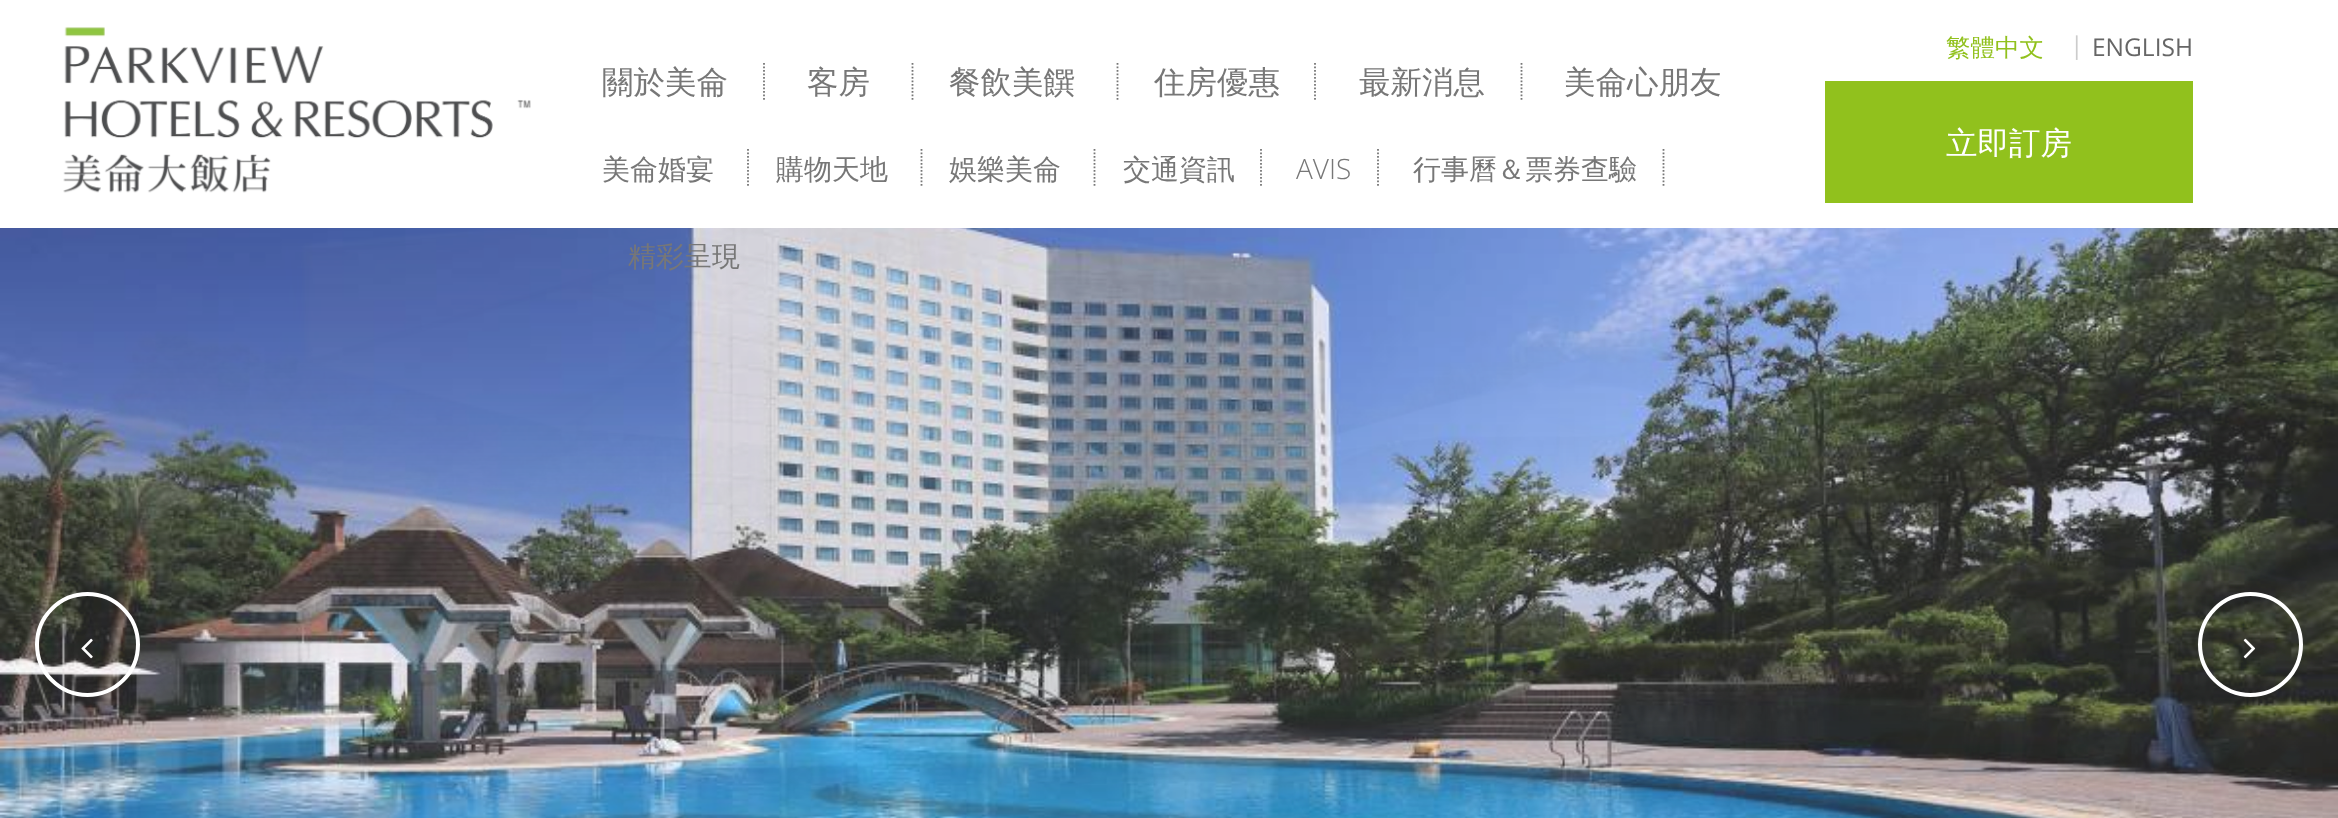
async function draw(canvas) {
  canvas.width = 2338;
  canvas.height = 818;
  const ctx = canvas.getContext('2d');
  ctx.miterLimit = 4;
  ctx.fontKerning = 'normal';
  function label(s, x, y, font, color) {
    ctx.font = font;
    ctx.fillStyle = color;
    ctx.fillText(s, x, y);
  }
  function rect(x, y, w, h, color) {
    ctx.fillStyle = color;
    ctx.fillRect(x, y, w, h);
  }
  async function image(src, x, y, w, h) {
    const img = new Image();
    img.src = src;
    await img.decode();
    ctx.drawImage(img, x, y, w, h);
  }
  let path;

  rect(0, 0, 2338, 818, '#fff');
  await image('assets/img1.png', 63, 26, 468, 167);
  path = new Path2D('M764 63V101.5');
  ctx.strokeStyle = '#777';
  ctx.lineWidth = 1.8;
  ctx.setLineDash([1.75, 1.75]);
  ctx.stroke(path);
  label('關於美侖', 602, 93, '500 31.5px WenQuanYi Zen Hei', '#777');
  path = new Path2D('M912.5 63V101.5');
  ctx.stroke(path);
  label('客房', 807, 93, '500 31.5px WenQuanYi Zen Hei', '#777');
  path = new Path2D('M1117.5 63V101.5');
  ctx.stroke(path);
  label('餐飲美饌', 949, 93, '500 31.5px WenQuanYi Zen Hei', '#777');
  path = new Path2D('M1315 63V101.5');
  ctx.stroke(path);
  label('住房優惠', 1154, 93, '500 31.5px WenQuanYi Zen Hei', '#777');
  path = new Path2D('M1521.5 63V101.5');
  ctx.stroke(path);
  label('最新消息', 1359, 93, '500 31.5px WenQuanYi Zen Hei', '#777');
  label('美侖心朋友', 1564, 93, '500 31.5px WenQuanYi Zen Hei', '#777');
  path = new Path2D('M748 149V187');
  ctx.stroke(path);
  label('美侖婚宴', 602, 179, '500 28px WenQuanYi Zen Hei', '#777');
  path = new Path2D('M921.5 149V187');
  ctx.stroke(path);
  label('購物天地', 776, 179, '500 28px WenQuanYi Zen Hei', '#777');
  path = new Path2D('M1094.5 149V187');
  ctx.stroke(path);
  label('娛樂美侖', 949, 179, '500 28px WenQuanYi Zen Hei', '#777');
  path = new Path2D('M1261 149V187');
  ctx.stroke(path);
  label('交通資訊', 1123, 179, '500 28px WenQuanYi Zen Hei', '#777');
  path = new Path2D('M1378 149V187');
  ctx.stroke(path);
  label('AVIS', 1296, 179, '300 28px Open Sans', '#777');
  path = new Path2D('M1663.5 149V187');
  ctx.stroke(path);
  label('行事曆＆票券查驗', 1413, 179, '500 28px WenQuanYi Zen Hei', '#777');
  await image('assets/img2.png', 0, 228, 2338, 590);
  await image('assets/img3.png', 0, 228, 2338, 590);
  label('精彩呈現', 628, 266, '500 28px WenQuanYi Zen Hei', '#777');
  label('繁體中文', 1946, 56, '500 24.5px WenQuanYi Zen Hei', '#91c11d');
  label('|', 2070, 54, '24.5px Open Sans', '#ccc');
  label('ENGLISH', 2092, 56, '24.5px Open Sans', '#666');
  rect(1825, 81, 368, 122, '#91c11d');
  label('立即訂房', 1946, 154, '500 31.5px WenQuanYi Zen Hei', '#fff');
  ctx.beginPath();
  ctx.arc(87.5, 644.5, 50.5, 0, 2 * Math.PI);
  ctx.strokeStyle = '#fff';
  ctx.lineWidth = 4;
  ctx.setLineDash([]);
  ctx.stroke();
  await image('assets/img4.png', 81, 638, 12, 21);
  ctx.beginPath();
  ctx.arc(2250.5, 644.5, 50.5, 0, 2 * Math.PI);
  ctx.stroke();
  await image('assets/img5.png', 2243, 638, 13, 21);
}

draw(document.querySelector('canvas'));
